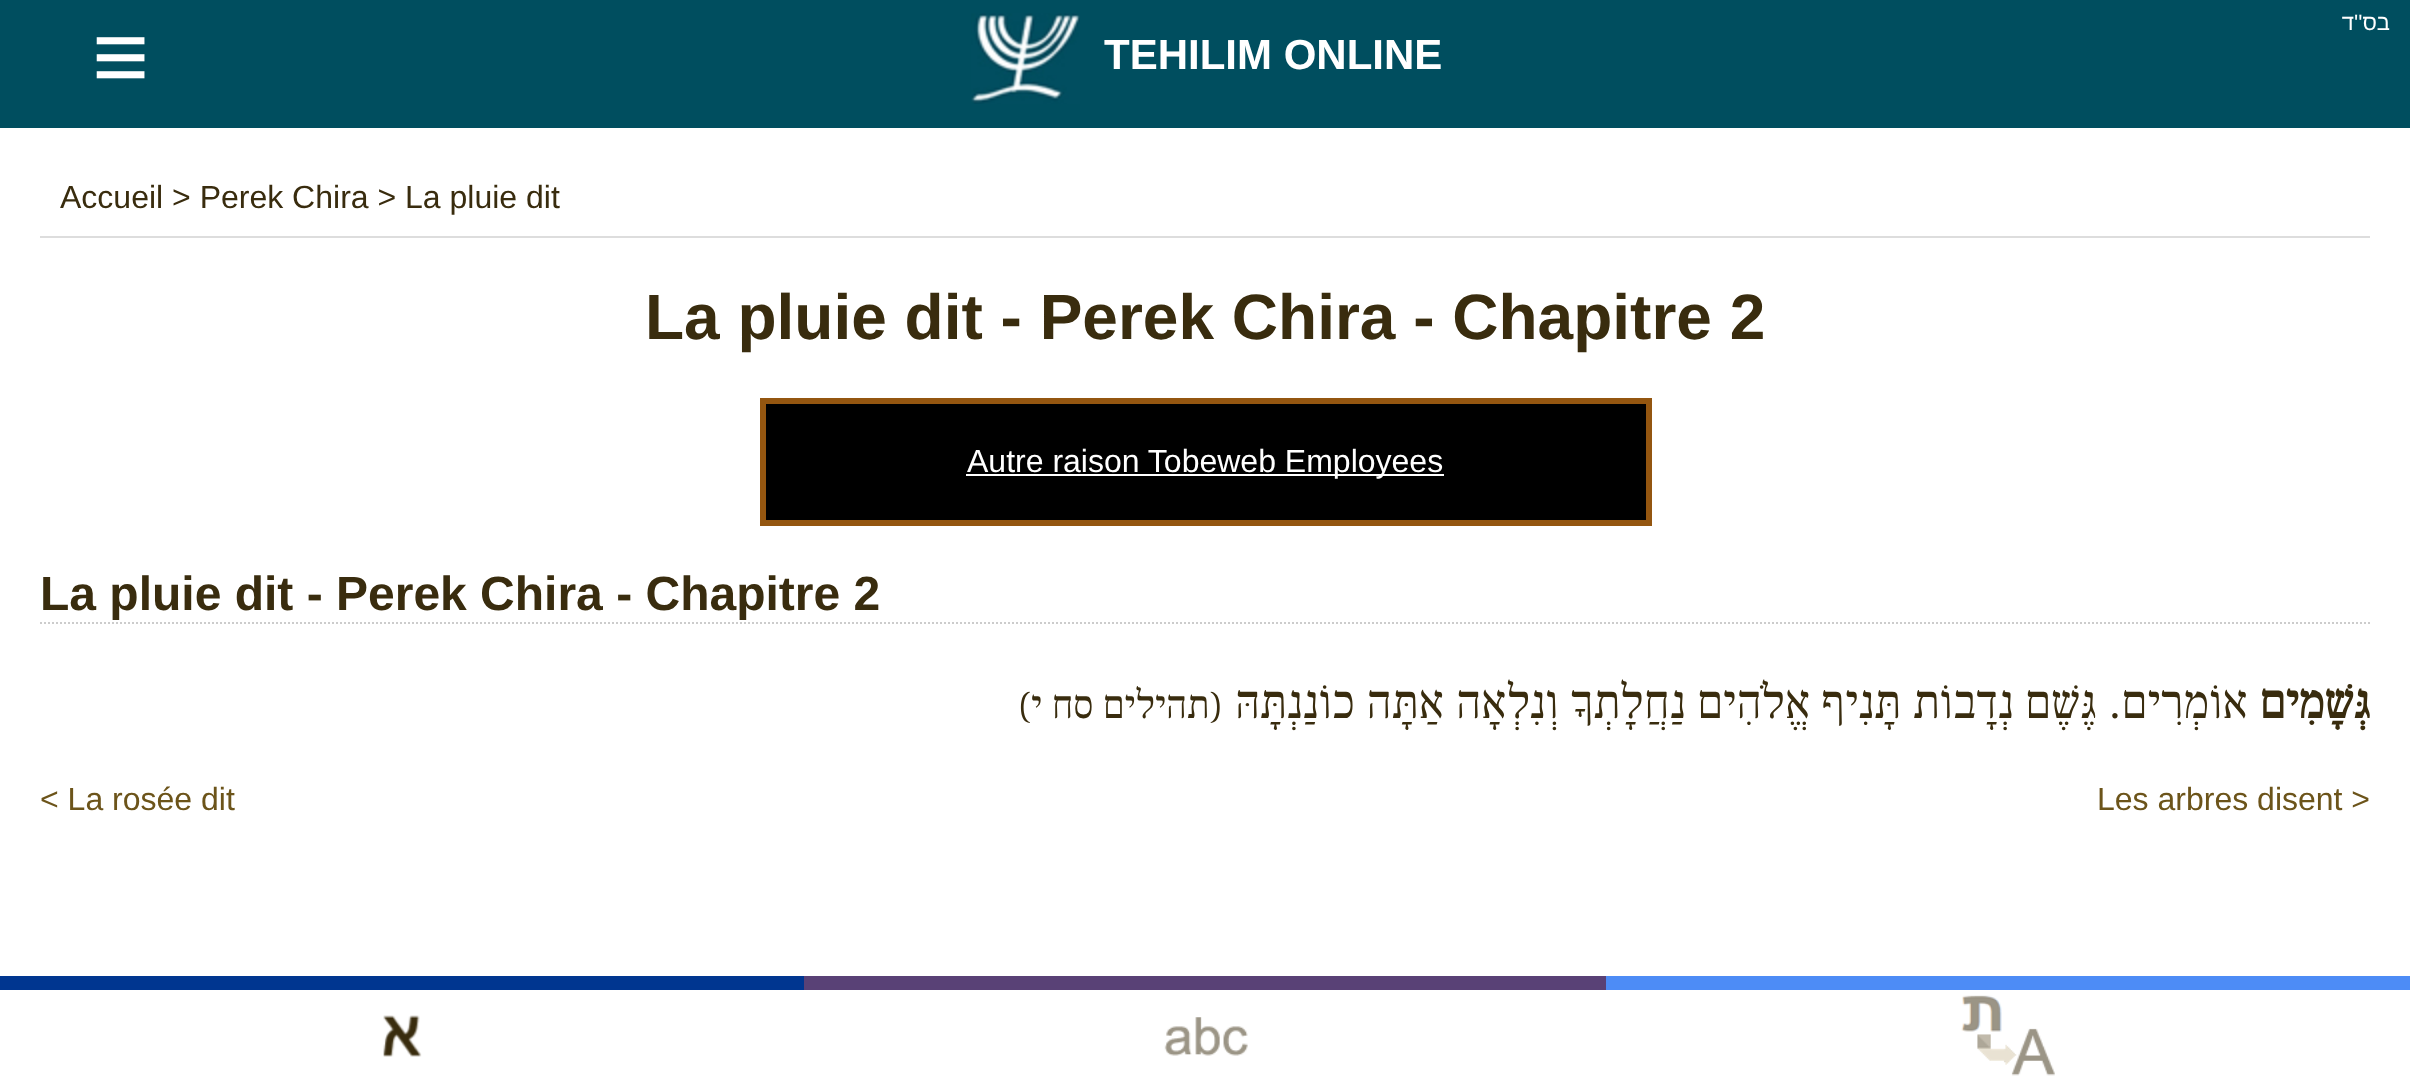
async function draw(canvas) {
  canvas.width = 2410;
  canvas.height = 1082;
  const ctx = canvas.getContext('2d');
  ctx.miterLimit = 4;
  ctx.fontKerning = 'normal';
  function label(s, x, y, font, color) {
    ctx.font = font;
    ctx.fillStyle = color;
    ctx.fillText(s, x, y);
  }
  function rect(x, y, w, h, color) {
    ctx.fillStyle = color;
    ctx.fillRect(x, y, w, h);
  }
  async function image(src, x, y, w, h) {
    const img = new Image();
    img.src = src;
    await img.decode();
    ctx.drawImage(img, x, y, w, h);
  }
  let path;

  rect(0, 0, 2410, 1082, '#fff');
  rect(0, 0, 2410, 128, '#004e5f');
  ctx.direction = 'rtl';
  label('בס\'\'ד', 2390, 30, '22px Liberation Sans', '#fff');
  ctx.direction = 'ltr';
  label('≡', 92, 90, '98px Liberation Sans', '#fff');
  await image('assets/img1.png', 971, 13, 109, 91);
  label('TEHILIM ONLINE', 1104, 69, 'bold 42px Liberation Sans', '#fff');
  rect(40, 236, 2330, 2, '#ddd');
  label('Accueil > Perek Chira > La pluie dit', 60, 208, '32px Liberation Sans', '#392c0e');
  label('La pluie dit - Perek Chira - Chapitre 2', 645, 339, 'bold 64px Liberation Sans', '#392c0e');
  ctx.fillStyle = '#000';
  ctx.beginPath();
  ctx.rect(763, 401, 886, 122);
  ctx.fill();
  ctx.strokeStyle = '#945610';
  ctx.lineWidth = 6;
  ctx.stroke();
  rect(966, 474, 478, 2, '#fff');
  label('Autre raison Tobeweb Employees', 967, 472, '32px Liberation Sans', '#fff');
  path = new Path2D('M40 623H2370');
  ctx.strokeStyle = '#ccc';
  ctx.lineWidth = 2;
  ctx.setLineDash([2, 2]);
  ctx.stroke(path);
  label('La pluie dit - Perek Chira - Chapitre 2', 40, 610, 'bold 48px Liberation Sans', '#392c0e');
  ctx.direction = 'rtl';
  label('(תהילים סח י)', 1223, 718, '40px Frank Ruhl Libre', '#392c0e');
  label('אוֹמְרִים. גֶּשֶׁם נְדָבוֹת תָּנִיף אֱלֹהִים נַחֲלָתְךָ וְנִלְאָה אַתָּה כוֹנַנְתָּהּ', 2248, 718, '48px Frank Ruhl Libre', '#392c0e');
  label('גְּשָׁמִים', 2370, 718, 'bold 48px Frank Ruhl Libre', '#392c0e');
  ctx.direction = 'ltr';
  label('< La rosée dit', 40, 810, '32px Liberation Sans', '#6c541a');
  label('Les arbres disent >', 2097, 810, '32px Liberation Sans', '#6c541a');
  rect(0, 976, 804, 14, '#003690');
  await image('assets/img2.png', 383, 1015, 39, 42);
  rect(804, 976, 802, 14, '#594176');
  await image('assets/img3.png', 1164, 1017, 84, 39);
  rect(1606, 976, 804, 14, '#4d8cf6');
  await image('assets/img4.png', 1961, 995, 94, 81);
}

draw(document.querySelector('canvas'));
